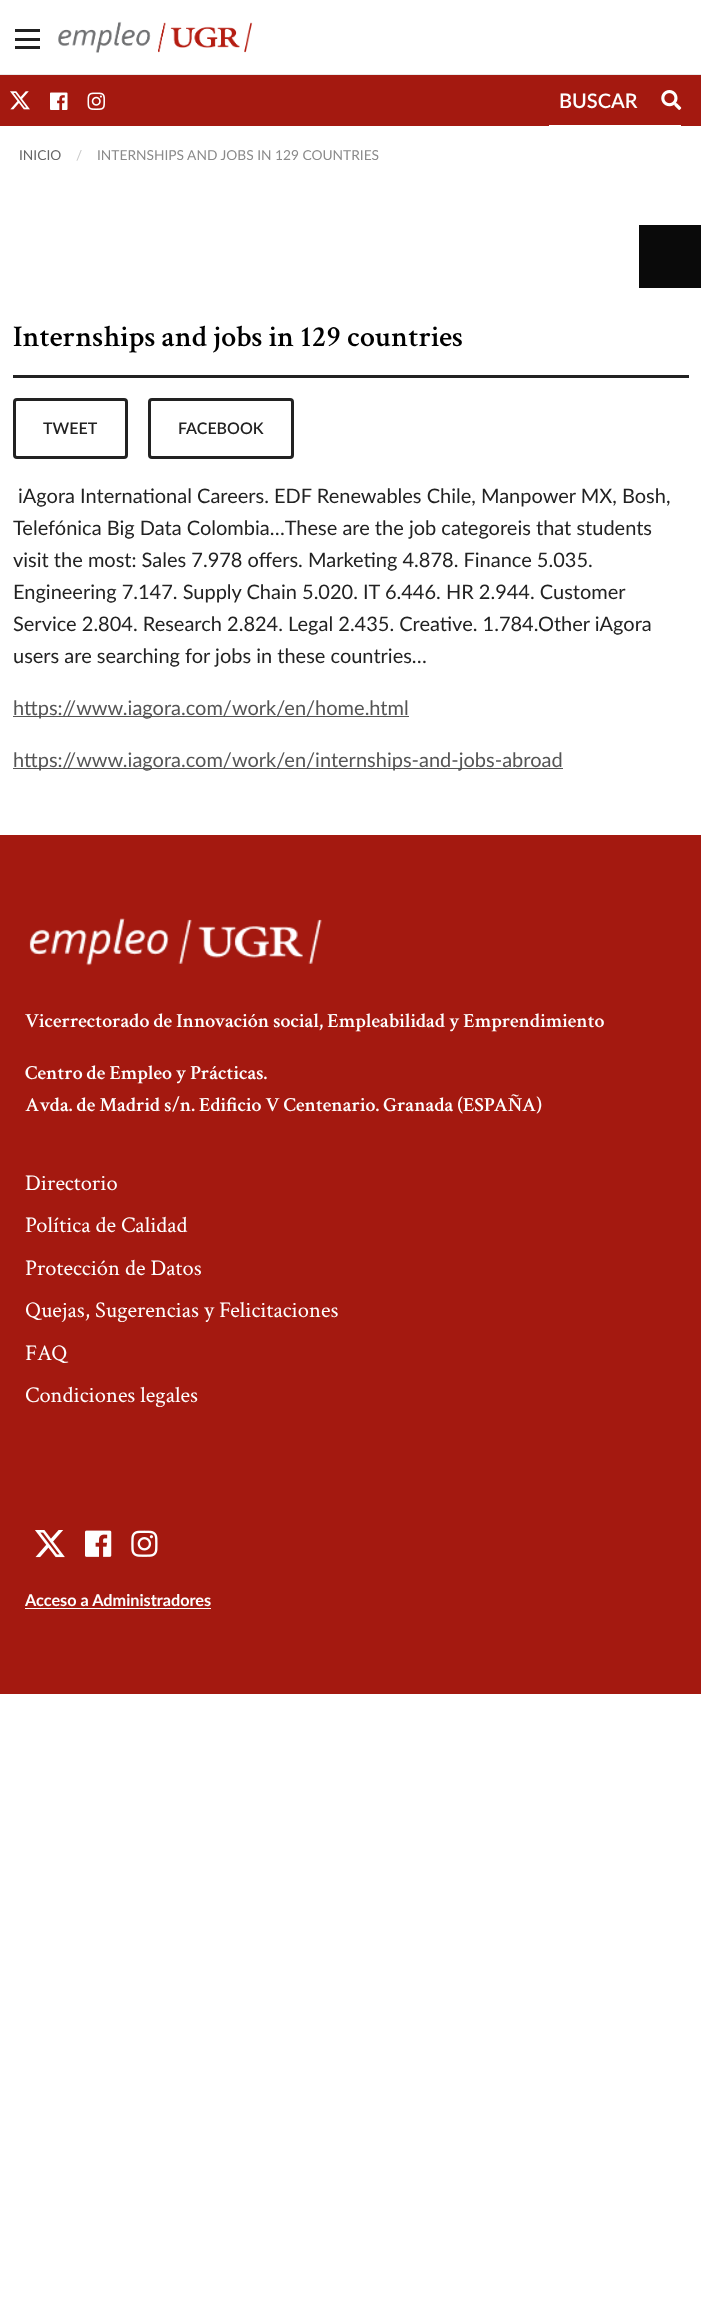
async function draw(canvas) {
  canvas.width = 701;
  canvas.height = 2299;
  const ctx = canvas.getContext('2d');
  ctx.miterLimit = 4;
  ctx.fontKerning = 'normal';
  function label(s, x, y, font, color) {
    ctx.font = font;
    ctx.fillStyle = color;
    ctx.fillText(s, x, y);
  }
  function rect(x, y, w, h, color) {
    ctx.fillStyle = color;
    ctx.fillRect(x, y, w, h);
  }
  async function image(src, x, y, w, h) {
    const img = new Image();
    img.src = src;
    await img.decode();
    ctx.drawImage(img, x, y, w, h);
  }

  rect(0, 0, 701, 2299, '#fff');
  rect(15, 46, 25, 3, '#212121');
  rect(15, 38, 25, 3, '#212121');
  rect(15, 29, 25, 3, '#212121');
  await image('assets/img1.png', 58, 21, 195, 32);
  rect(0, 74, 701, 1, '#eaeaea');
  rect(0, 75, 701, 51, '#a41910');
  await image('assets/img2.png', 10, 91, 20, 19);
  await image('assets/img3.png', 50, 92, 18, 18);
  await image('assets/img4.png', 87, 92, 18, 18);
  rect(549, 125, 132, 1, '#fff');
  label('BUSCAR', 559, 108, '600 20px Lato', '#fefefe');
  await image('assets/img5.png', 661, 90, 21, 20);
  label('INICIO', 19, 160, '13.75px Lato', '#666');
  label('/', 76, 160, '13.75px Lato', '#cacaca');
  label('INTERNSHIPS AND JOBS IN 129 COUNTRIES', 97, 160, '13.75px Lato', '#8a8a8a');
  rect(639, 225, 62, 63, '#0a0a0a');
  label('Internships and jobs in 129 countries', 13, 346, '600 30px Crimson Text', '#000');
  rect(13, 375, 676, 3, '#222');
  ctx.beginPath();
  ctx.roundRect(14.5, 399.5, 112, 58, 2.5);
  ctx.strokeStyle = '#222';
  ctx.lineWidth = 3;
  ctx.stroke();
  label('TWEET', 43, 434, '600 16px Lato', '#222');
  ctx.beginPath();
  ctx.roundRect(149.5, 399.5, 143, 58, 2.5);
  ctx.stroke();
  label('FACEBOOK', 178, 434, '600 16px Lato', '#222');
  label('iAgora International Careers. EDF Renewables Chile, Manpower MX, Bosh,', 18, 503, '20px Lato', '#222');
  label('Telefónica Big Data Colombia…These are the job categoreis that students', 13, 535, '20px Lato', '#222');
  label('visit the most: Sales 7.978 offers. Marketing 4.878. Finance 5.035.', 13, 567, '20px Lato', '#222');
  label('Engineering 7.147. Supply Chain 5.020. IT 6.446. HR 2.944. Customer', 13, 599, '20px Lato', '#222');
  label('Service 2.804. Research 2.824. Legal 2.435. Creative. 1.784.Other iAgora', 13, 631, '20px Lato', '#222');
  label('users are searching for jobs in these countries…', 13, 663, '20px Lato', '#222');
  rect(13, 716, 396, 1, '#555');
  label('https://www.iagora.com/work/en/home.html', 13, 715, '20px Lato', '#555');
  rect(13, 768, 550, 1, '#555');
  label('https://www.iagora.com/work/en/internships-and-jobs-abroad', 13, 767, '20px Lato', '#555');
  rect(0, 835, 701, 859, '#a41910');
  await image('assets/img6.png', 29, 918, 293, 48);
  label('Vicerrectorado de Innovación social, Empleabilidad y Emprendimiento', 25, 1027, '600 20px Crimson Text', '#fefefe');
  label('Centro de Empleo y Prácticas.', 25, 1079, '600 20px Crimson Text', '#fefefe');
  label('Avda. de Madrid s/n. Edificio V Centenario. Granada (ESPAÑA)', 25, 1111, '600 20px Crimson Text', '#fefefe');
  label('Directorio', 25, 1190, '22.5px Crimson Text', '#fefefe');
  label('Política de Calidad', 25, 1232, '22.5px Crimson Text', '#fefefe');
  label('Protección de Datos', 25, 1275, '22.5px Crimson Text', '#fefefe');
  label('Quejas, Sugerencias y Felicitaciones', 25, 1317, '22.5px Crimson Text', '#fefefe');
  label('FAQ', 25, 1360, '22.5px Crimson Text', '#fefefe');
  label('Condiciones legales', 25, 1402, '22.5px Crimson Text', '#fefefe');
  await image('assets/img7.png', 35, 1530, 30, 28);
  await image('assets/img8.png', 85, 1530, 27, 27);
  await image('assets/img9.png', 131, 1530, 27, 27);
  label('Acceso a Administradores', 25, 1606, 'bold 16.25px Lato', '#fefefe');
  rect(25, 1608, 186, 1, '#fff');
}

draw(document.querySelector('canvas'));
